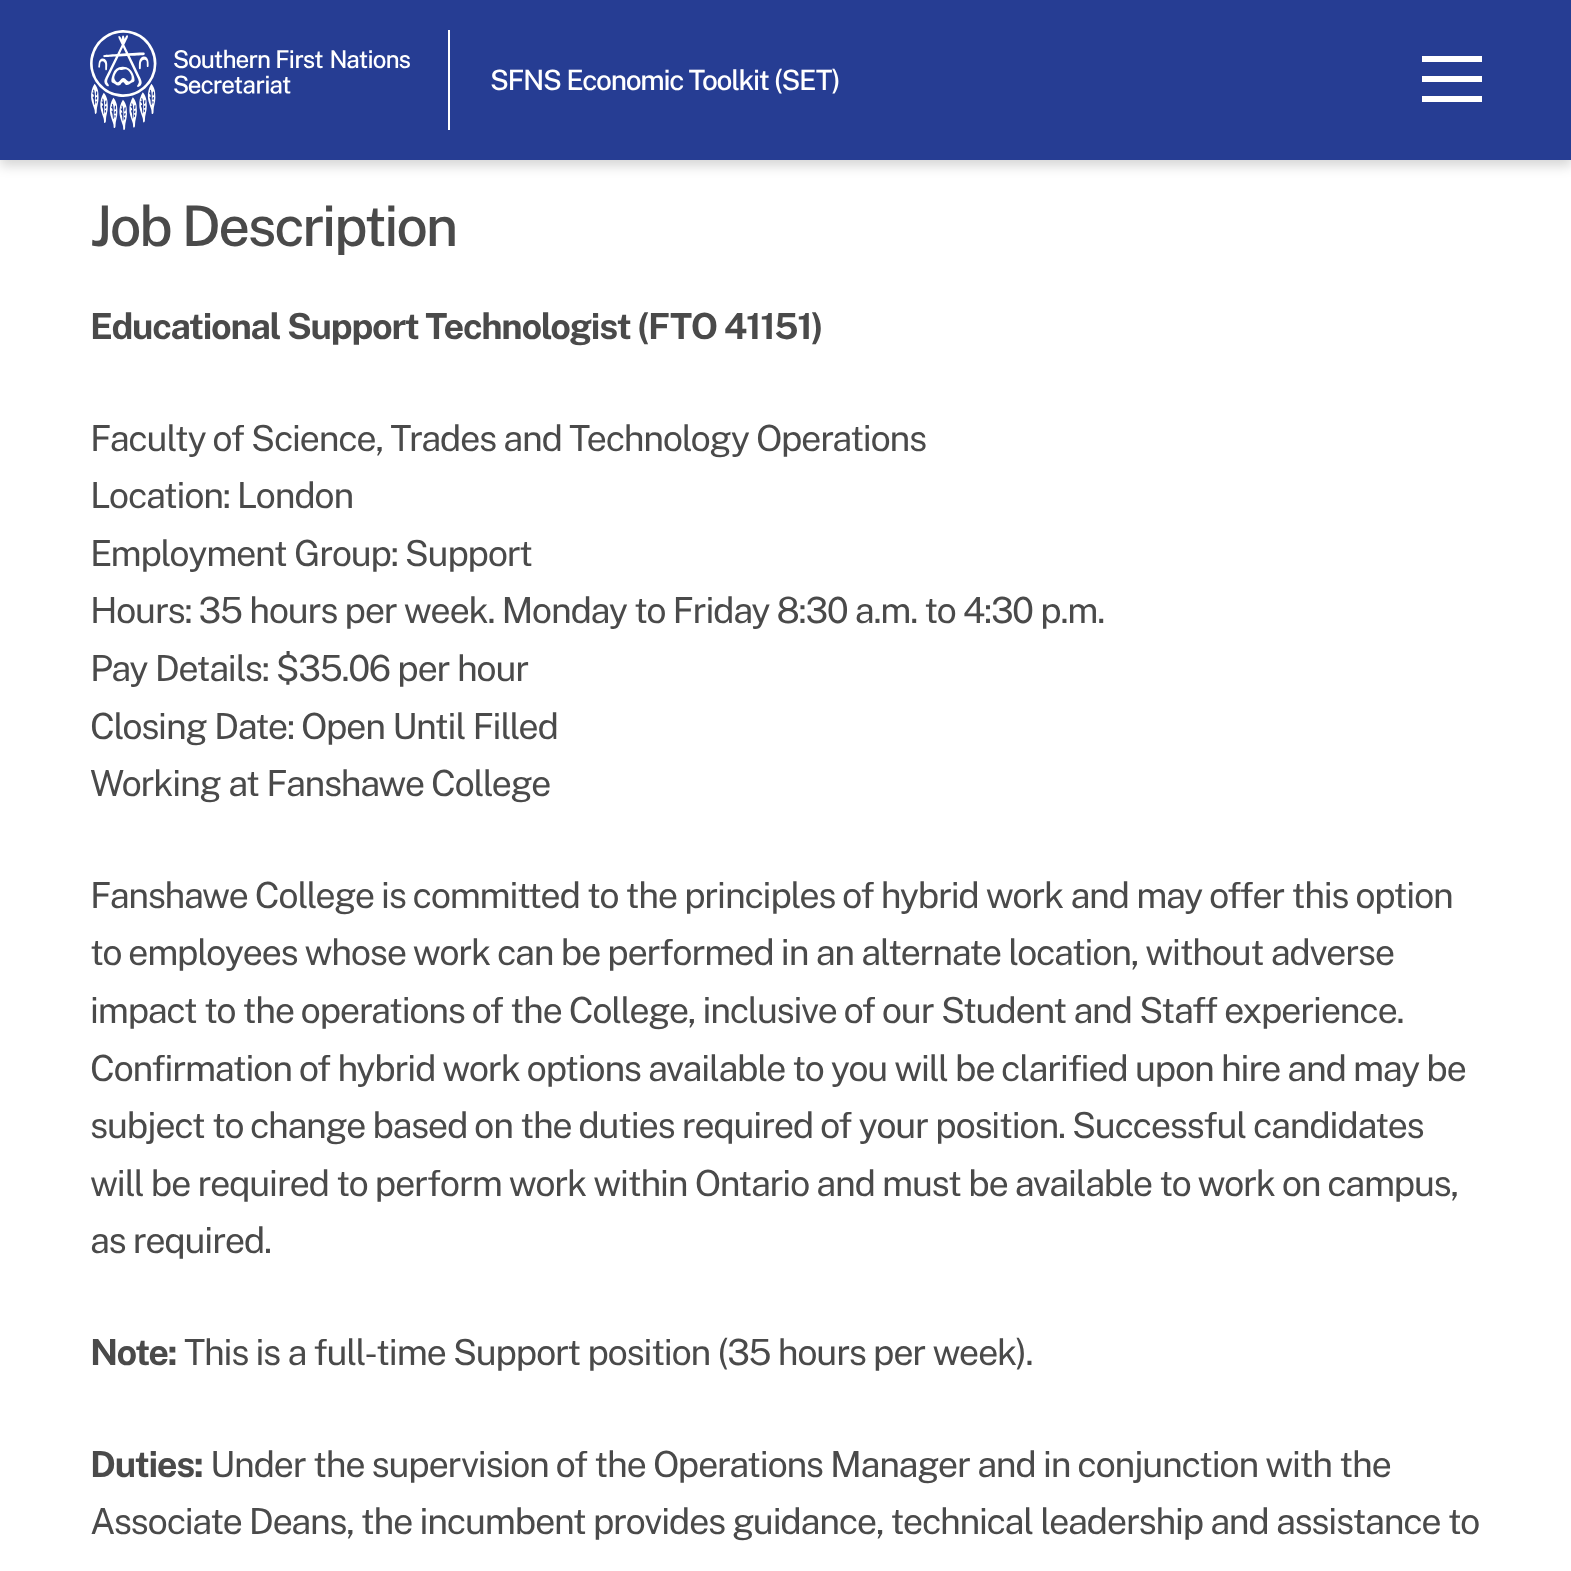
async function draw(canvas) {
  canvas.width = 1571;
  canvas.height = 1571;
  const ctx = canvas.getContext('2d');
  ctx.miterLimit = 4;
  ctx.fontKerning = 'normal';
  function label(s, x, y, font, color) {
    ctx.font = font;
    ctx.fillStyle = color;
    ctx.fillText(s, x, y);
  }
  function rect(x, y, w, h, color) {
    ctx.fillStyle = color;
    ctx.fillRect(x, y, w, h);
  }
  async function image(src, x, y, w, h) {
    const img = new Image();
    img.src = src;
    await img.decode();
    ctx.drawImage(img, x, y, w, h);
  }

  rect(0, 0, 1571, 1571, '#fff');
  ctx.fillStyle = '#00000029';
  ctx.filter = 'blur(6px)';
  ctx.beginPath();
  ctx.rect(0, 6, 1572, 160);
  ctx.fill();
  ctx.filter = 'none';
  rect(0, 0, 1571, 160, '#263d93');
  await image('assets/img1.png', 90, 30, 320, 100);
  rect(448, 30, 2, 100, '#fff');
  ctx.letterSpacing = '-1.28px';
  label('SFNS Economic Toolkit (SET)', 490, 90, '500 28px Public Sans', '#fff');
  rect(1422, 56, 60, 6, '#fff');
  rect(1422, 76, 60, 6, '#fff');
  rect(1422, 96, 60, 6, '#fff');
  ctx.letterSpacing = '-2.25px';
  label('Job Description', 90, 246, '500 56px Public Sans', '#4a4a4a');
  ctx.letterSpacing = '-1.28px';
  label('Educational Support Technologist (FTO 41151)', 90, 339, 'bold 36px Public Sans', '#4a4a4a');
  label('Faculty of Science, Trades and Technology Operations', 90, 451, '36px Public Sans', '#4a4a4a');
  label('Location: London', 90, 508, '36px Public Sans', '#4a4a4a');
  label('Employment Group: Support', 90, 566, '36px Public Sans', '#4a4a4a');
  label('Hours: 35 hours per week. Monday to Friday 8:30 a.m. to 4:30 p.m.', 90, 623, '36px Public Sans', '#4a4a4a');
  label('Pay Details: $35.06 per hour', 90, 681, '36px Public Sans', '#4a4a4a');
  label('Closing Date: Open Until Filled', 90, 739, '36px Public Sans', '#4a4a4a');
  label('Working at Fanshawe College', 90, 796, '36px Public Sans', '#4a4a4a');
  label('Fanshawe College is committed to the principles of hybrid work and may offer this option', 90, 908, '36px Public Sans', '#4a4a4a');
  label('to employees whose work can be performed in an alternate location, without adverse', 90, 965, '36px Public Sans', '#4a4a4a');
  label('impact to the operations of the College, inclusive of our Student and Staff experience.', 90, 1023, '36px Public Sans', '#4a4a4a');
  label('Confirmation of hybrid work options available to you will be clarified upon hire and may be', 90, 1081, '36px Public Sans', '#4a4a4a');
  label('subject to change based on the duties required of your position. Successful candidates', 90, 1138, '36px Public Sans', '#4a4a4a');
  label('will be required to perform work within Ontario and must be available to work on campus,', 90, 1196, '36px Public Sans', '#4a4a4a');
  label('as required.', 90, 1253, '36px Public Sans', '#4a4a4a');
  label('Note:', 90, 1365, 'bold 36px Public Sans', '#4a4a4a');
  label('This is a full-time Support position (35 hours per week).', 184, 1365, '36px Public Sans', '#4a4a4a');
  label('Duties:', 90, 1477, 'bold 36px Public Sans', '#4a4a4a');
  label('Under the supervision of the Operations Manager and in conjunction with the', 210, 1477, '36px Public Sans', '#4a4a4a');
  label('Associate Deans, the incumbent provides guidance, technical leadership and assistance to', 90, 1534, '36px Public Sans', '#4a4a4a');
}

draw(document.querySelector('canvas'));
